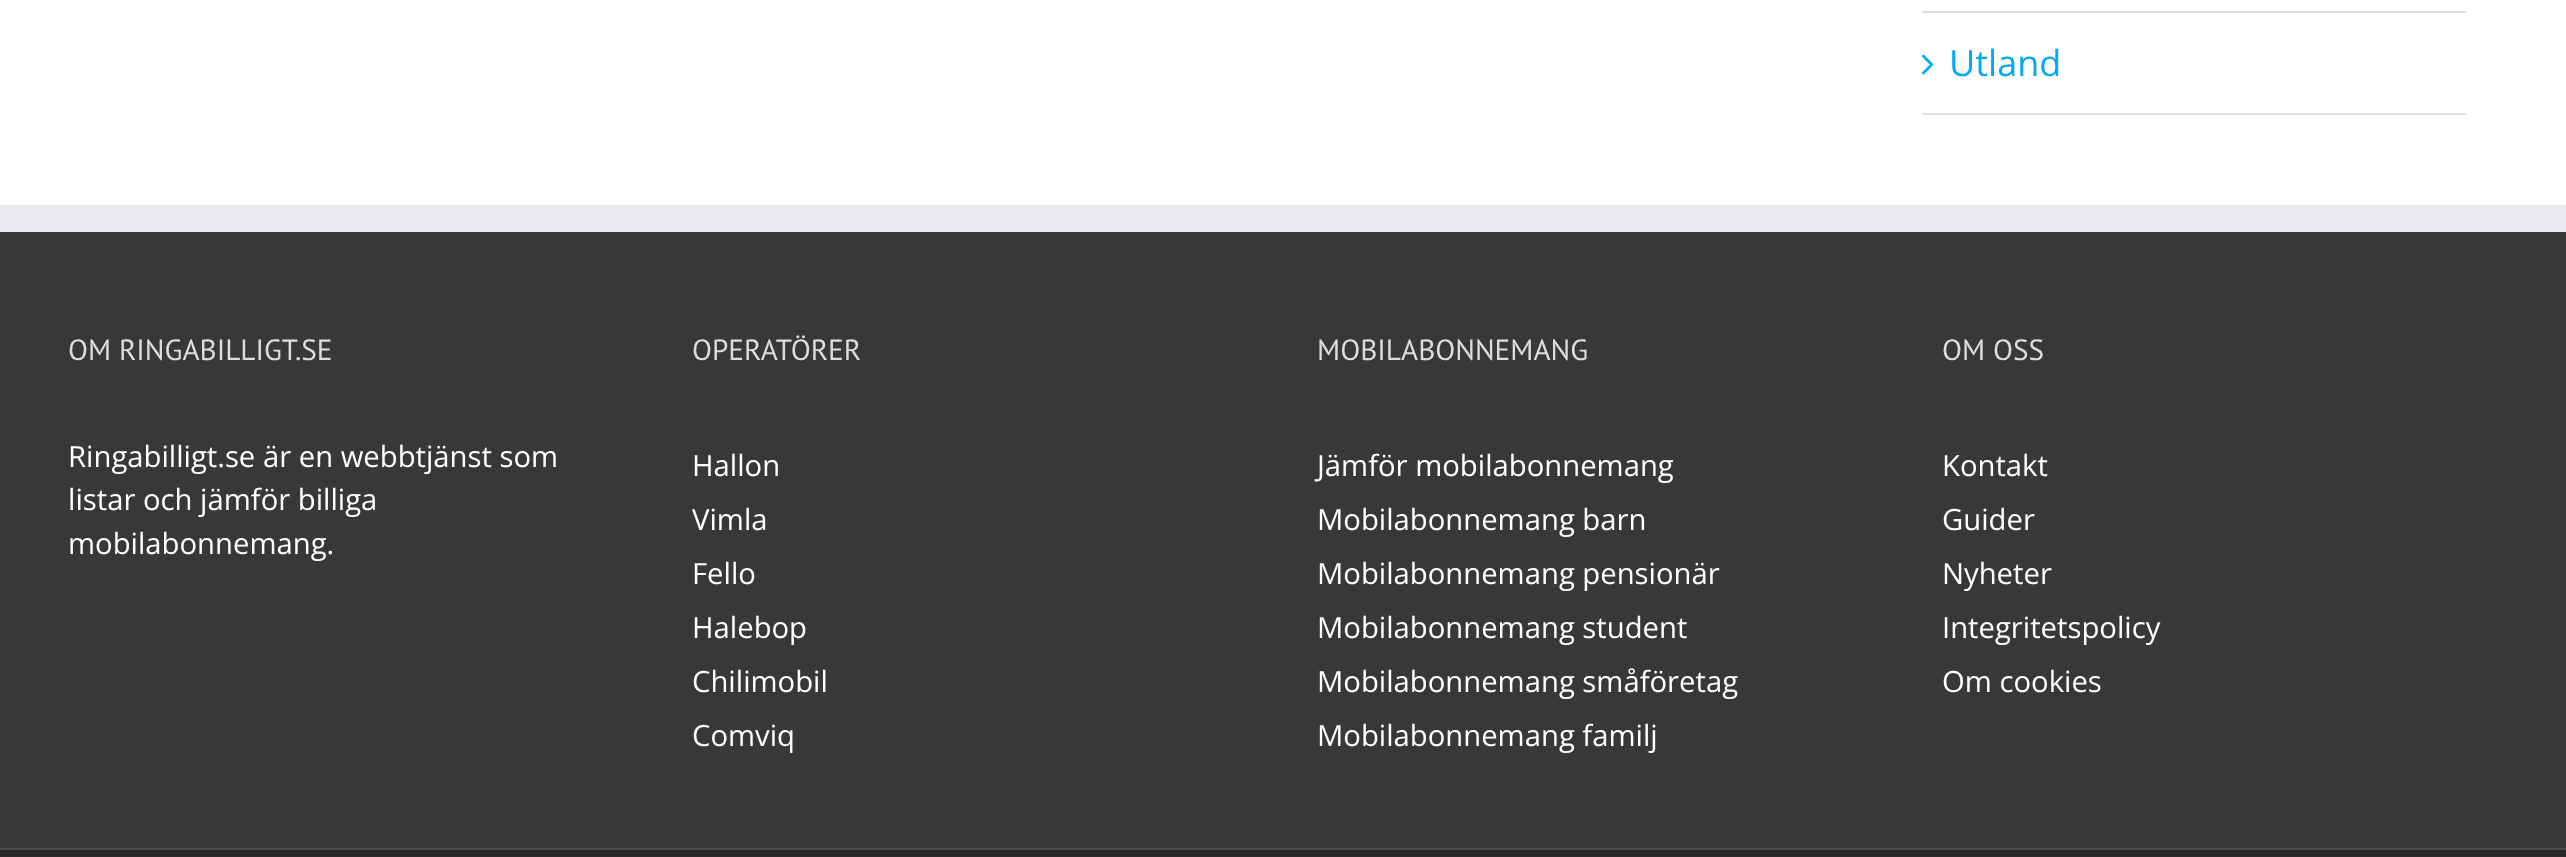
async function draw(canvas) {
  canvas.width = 2566;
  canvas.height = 857;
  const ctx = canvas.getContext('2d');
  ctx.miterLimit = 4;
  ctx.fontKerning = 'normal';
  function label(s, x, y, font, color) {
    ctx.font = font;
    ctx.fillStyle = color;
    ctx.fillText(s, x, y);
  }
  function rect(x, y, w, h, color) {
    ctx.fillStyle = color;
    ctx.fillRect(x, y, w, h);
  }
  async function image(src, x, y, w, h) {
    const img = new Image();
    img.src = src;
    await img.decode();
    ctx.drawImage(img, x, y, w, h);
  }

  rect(0, 0, 2566, 857, '#fff');
  rect(1922, 11, 544, 2, '#e0dede');
  rect(1922, 113, 544, 2, '#e0dede');
  await image('assets/img1.png', 1921, 54, 13, 21);
  label('Utland', 1949, 76, '36px Open Sans', '#03a9f4');
  rect(0, 232, 2566, 616, '#363839');
  rect(0, 205, 2566, 27, '#e9eaee');
  label('OM RINGABILLIGT.SE', 68, 360, '29.25px PT Sans', '#ddd');
  label('Ringabilligt.se är en webbtjänst som', 68, 467, '29.25px Open Sans', '#fff');
  label('listar och jämför billiga', 68, 510, '29.25px Open Sans', '#fff');
  label('mobilabonnemang.', 68, 554, '29.25px Open Sans', '#fff');
  label('OPERATÖRER', 692, 360, '29.25px PT Sans', '#ddd');
  label('Hallon', 692, 476, '29.25px Open Sans', '#fff');
  label('Vimla', 692, 530, '29.25px Open Sans', '#fff');
  label('Fello', 692, 584, '29.25px Open Sans', '#fff');
  label('Halebop', 692, 638, '29.25px Open Sans', '#fff');
  label('Chilimobil', 692, 692, '29.25px Open Sans', '#fff');
  label('Comviq', 692, 746, '29.25px Open Sans', '#fff');
  label('MOBILABONNEMANG', 1317, 360, '29.25px PT Sans', '#ddd');
  label('Jämför mobilabonnemang', 1317, 476, '29.25px Open Sans', '#fff');
  label('Mobilabonnemang barn', 1317, 530, '29.25px Open Sans', '#fff');
  label('Mobilabonnemang pensionär', 1317, 584, '29.25px Open Sans', '#fff');
  label('Mobilabonnemang student', 1317, 638, '29.25px Open Sans', '#fff');
  label('Mobilabonnemang småföretag', 1317, 692, '29.25px Open Sans', '#fff');
  label('Mobilabonnemang familj', 1317, 746, '29.25px Open Sans', '#fff');
  label('OM OSS', 1942, 360, '29.25px PT Sans', '#ddd');
  label('Kontakt', 1942, 476, '29.25px Open Sans', '#fff');
  label('Guider', 1942, 530, '29.25px Open Sans', '#fff');
  label('Nyheter', 1942, 584, '29.25px Open Sans', '#fff');
  label('Integritetspolicy', 1942, 638, '29.25px Open Sans', '#fff');
  label('Om cookies', 1942, 692, '29.25px Open Sans', '#fff');
  rect(0, 850, 2566, 7, '#282a2b');
  rect(0, 848, 2566, 2, '#4b4c4d');
}

draw(document.querySelector('canvas'));
